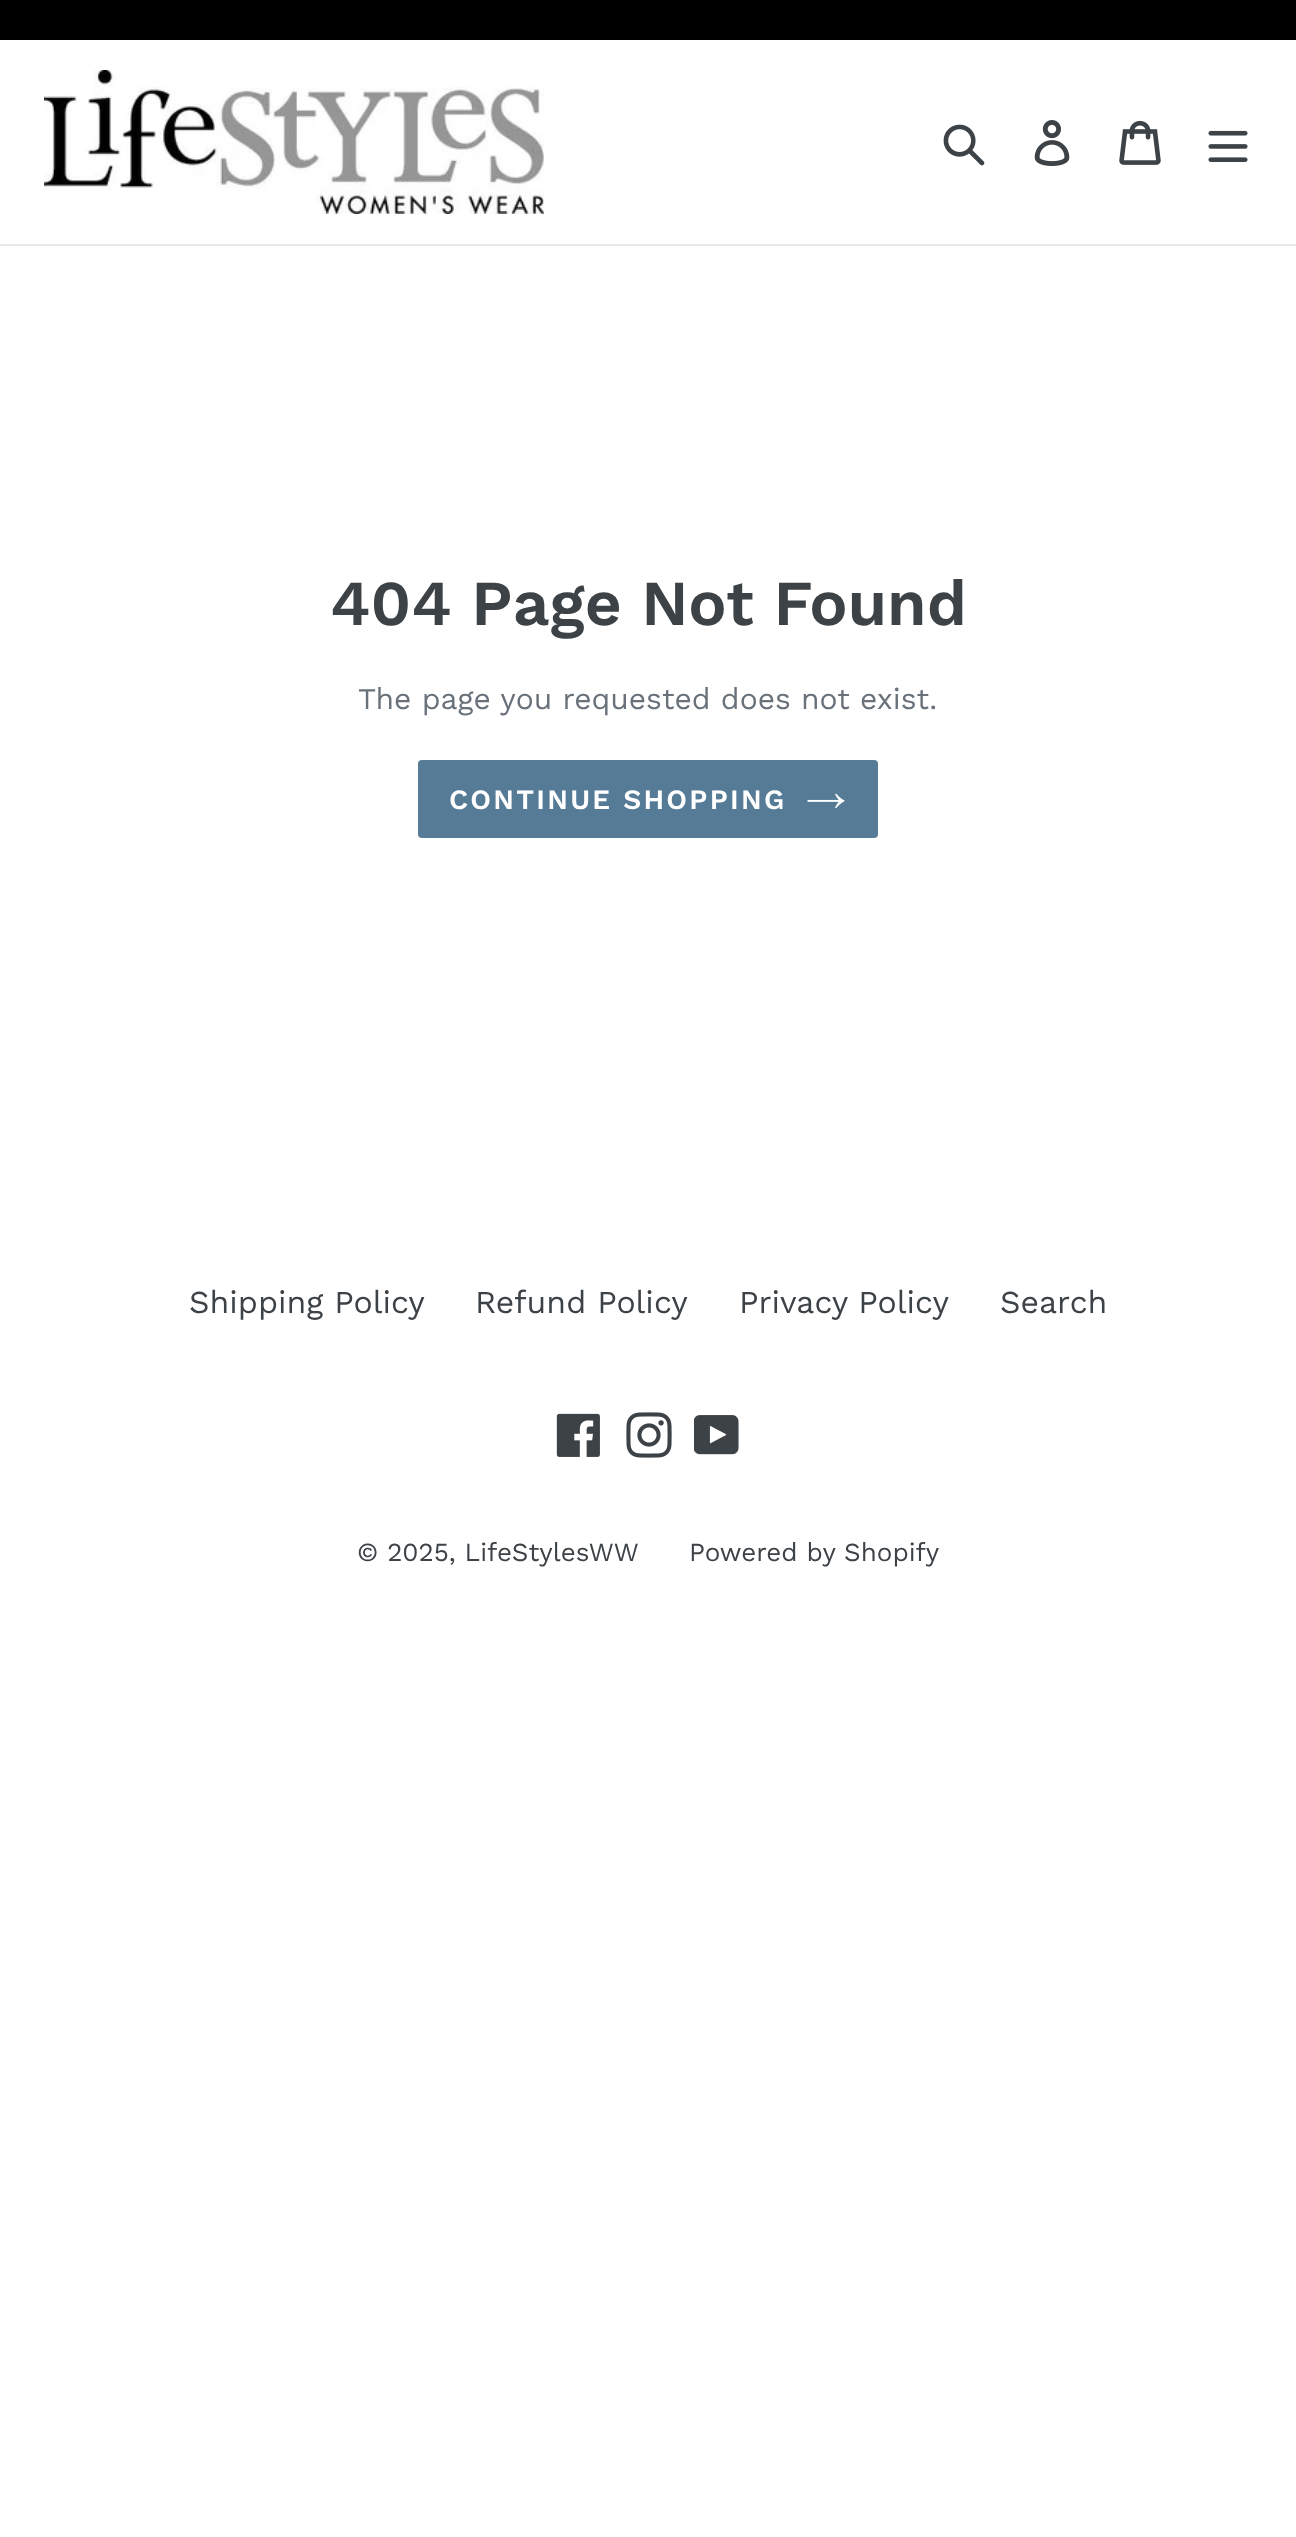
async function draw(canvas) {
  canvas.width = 1296;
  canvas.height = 2537;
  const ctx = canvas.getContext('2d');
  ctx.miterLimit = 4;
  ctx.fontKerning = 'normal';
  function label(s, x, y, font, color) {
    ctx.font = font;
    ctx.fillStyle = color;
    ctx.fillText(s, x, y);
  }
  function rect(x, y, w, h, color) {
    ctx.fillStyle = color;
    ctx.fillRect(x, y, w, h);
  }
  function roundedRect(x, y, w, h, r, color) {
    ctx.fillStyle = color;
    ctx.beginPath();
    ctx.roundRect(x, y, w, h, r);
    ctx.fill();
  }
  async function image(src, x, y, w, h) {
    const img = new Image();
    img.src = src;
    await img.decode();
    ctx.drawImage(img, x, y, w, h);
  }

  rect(0, 0, 1296, 2537, '#fff');
  rect(0, 0, 1296, 40, '#000');
  rect(0, 244, 1296, 2, '#e8e9eb');
  await image('assets/img1.png', 44, 70, 500, 144);
  await image('assets/img2.png', 943, 124, 42, 42);
  await image('assets/img3.png', 1034, 120, 36, 46);
  await image('assets/img4.png', 1119, 120, 42, 45);
  await image('assets/img5.png', 1208, 130, 40, 32);
  label('404 Page Not Found', 330, 625, '600 64px Work Sans', '#3d4246');
  label('The page you requested does not exist.', 358, 709, '30px Work Sans', '#69727b');
  roundedRect(418, 760, 460, 78, 4, '#557b97');
  ctx.letterSpacing = '2.25px';
  label('CONTINUE SHOPPING', 449, 809, '600 28px Work Sans', '#fff');
  await image('assets/img6.png', 807, 793, 38, 15);
  ctx.letterSpacing = '0px';
  label('Shipping Policy', 189, 1313, '32px Work Sans', '#3d4246');
  label('Refund Policy', 475, 1313, '32px Work Sans', '#3d4246');
  label('Privacy Policy', 739, 1313, '32px Work Sans', '#3d4246');
  label('Search', 1000, 1313, '32px Work Sans', '#3d4246');
  await image('assets/img7.png', 556, 1413, 44, 44);
  await image('assets/img8.png', 626, 1412, 46, 46);
  await image('assets/img9.png', 694, 1415, 45, 40);
  label('© 2025, LifeStylesWW', 357, 1561, '26px Work Sans', '#3d4246');
  label('Powered by Shopify', 689, 1561, '26px Work Sans', '#3d4246');
}

draw(document.querySelector('canvas'));
